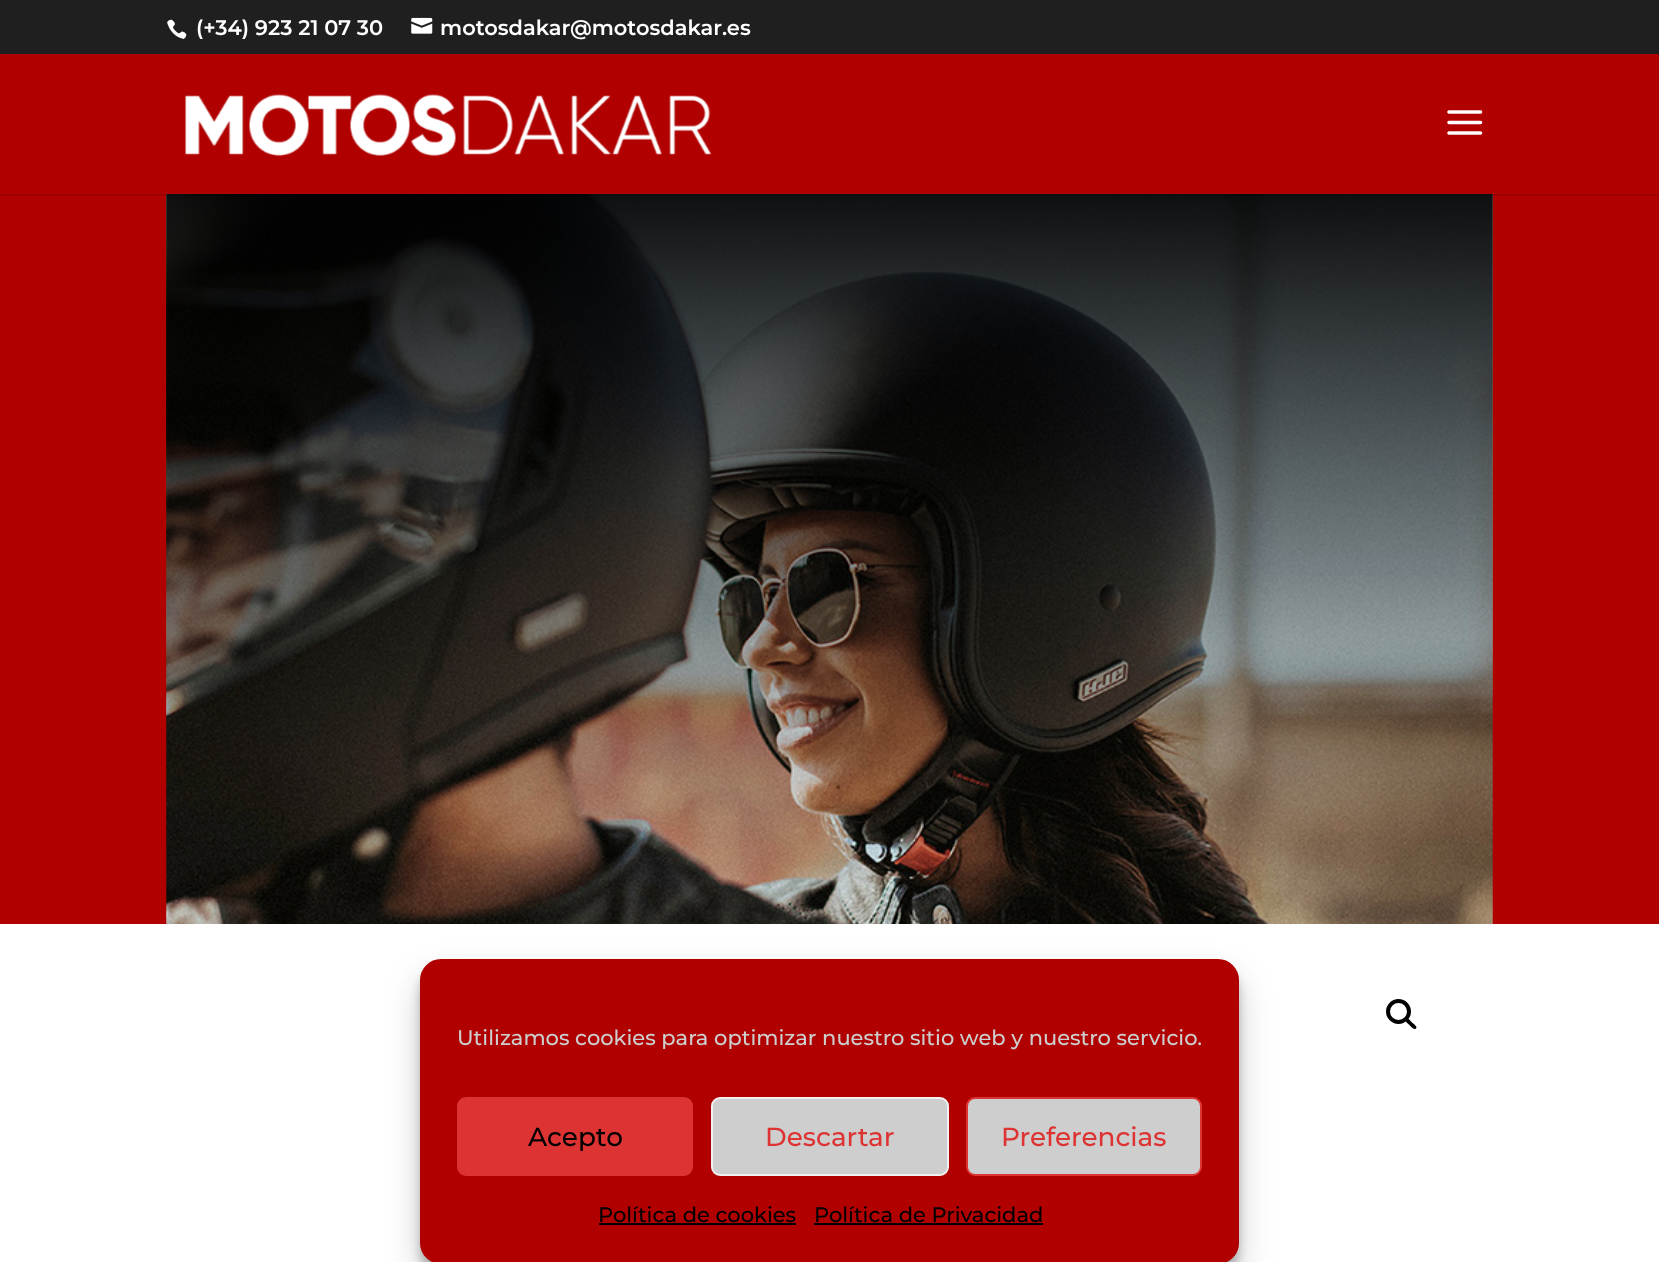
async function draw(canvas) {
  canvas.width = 1659;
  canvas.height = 1262;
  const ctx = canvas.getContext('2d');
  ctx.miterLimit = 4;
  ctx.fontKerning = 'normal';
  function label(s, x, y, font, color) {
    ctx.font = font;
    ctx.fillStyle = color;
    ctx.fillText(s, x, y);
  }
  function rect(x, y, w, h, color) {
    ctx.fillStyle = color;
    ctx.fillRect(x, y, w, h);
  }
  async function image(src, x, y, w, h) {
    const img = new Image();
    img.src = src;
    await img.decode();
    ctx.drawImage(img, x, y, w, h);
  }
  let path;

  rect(0, 0, 1659, 1262, '#b00000');
  rect(0, 0, 1659, 54, '#1f1f1f');
  await image('assets/img1.png', 167, 19, 20, 20);
  label('(+34) 923 21 07 30', 196, 35, '100 21px "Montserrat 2"', '#fff');
  await image('assets/img2.png', 411, 17, 22, 17);
  label('motosdakar@motosdakar.es', 440, 35, '100 21px "Montserrat 2"', '#fff');
  await image('assets/img5.png', 166, 194, 1327, 730);
  rect(0, 194, 1659, 2, '#0000001a');
  await image('assets/img3.png', 185, 94, 527, 62);
  await image('assets/img4.png', 1447, 110, 36, 25);
  rect(0, 924, 1659, 338, '#fff');
  ctx.beginPath();
  ctx.arc(1398.5, 1011.5, 10.5, 0, 2 * Math.PI);
  ctx.strokeStyle = '#000';
  ctx.lineWidth = 4;
  ctx.stroke();
  ctx.fillStyle = '#000';
  path = new Path2D('M1406 1019C1408 1017 1411 1021.5 1412 1022.5C1413 1023.5 1418 1026.5 1416 1028.5C1414 1030.5 1410.5 1026 1409.5 1025C1408.5 1024 1404 1021 1406 1019Z');
  ctx.fill(path);
  ctx.fillStyle = '#0000003b';
  ctx.filter = 'blur(5px)';
  ctx.beginPath();
  ctx.roundRect(420, 970, 819, 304, 21);
  ctx.fill();
  ctx.filter = 'none';
  ctx.fillStyle = '#00000030';
  ctx.filter = 'blur(17.5px)';
  ctx.beginPath();
  ctx.roundRect(420, 977, 819, 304, 21);
  ctx.fill();
  ctx.filter = 'none';
  ctx.fillStyle = '#b00000';
  ctx.beginPath();
  ctx.roundRect(421, 960, 817, 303, 20);
  ctx.fill();
  ctx.strokeStyle = '#b00000';
  ctx.lineWidth = 2;
  ctx.stroke();
  label('Utilizamos cookies para optimizar nuestro sitio web y nuestro servicio.', 457, 1045, '100 21px Montserrat', '#cecece');
  ctx.fillStyle = '#d33';
  ctx.beginPath();
  ctx.roundRect(458, 1098, 234, 77, 8);
  ctx.fill();
  ctx.strokeStyle = '#d33';
  ctx.stroke();
  label('Acepto', 528, 1146, '100 26.25px Montserrat', '#000');
  ctx.fillStyle = '#cecece';
  ctx.beginPath();
  ctx.roundRect(712, 1098, 236, 77, 8);
  ctx.fill();
  ctx.strokeStyle = '#f1f1f1';
  ctx.stroke();
  label('Descartar', 765, 1146, '100 26.25px Montserrat', '#d33');
  ctx.fillStyle = '#cecece';
  ctx.beginPath();
  ctx.roundRect(967, 1098, 234, 77, 8);
  ctx.fill();
  ctx.strokeStyle = '#d33';
  ctx.stroke();
  label('Preferencias', 1001, 1146, '100 26.25px Montserrat', '#d33');
  label('Política de cookies', 598, 1222, '100 21px Montserrat', '#000');
  rect(599, 1223, 197, 2, '#000');
  label('Política de Privacidad', 814, 1222, '100 21px Montserrat', '#000');
  rect(814, 1223, 229, 2, '#000');
}

draw(document.querySelector('canvas'));
